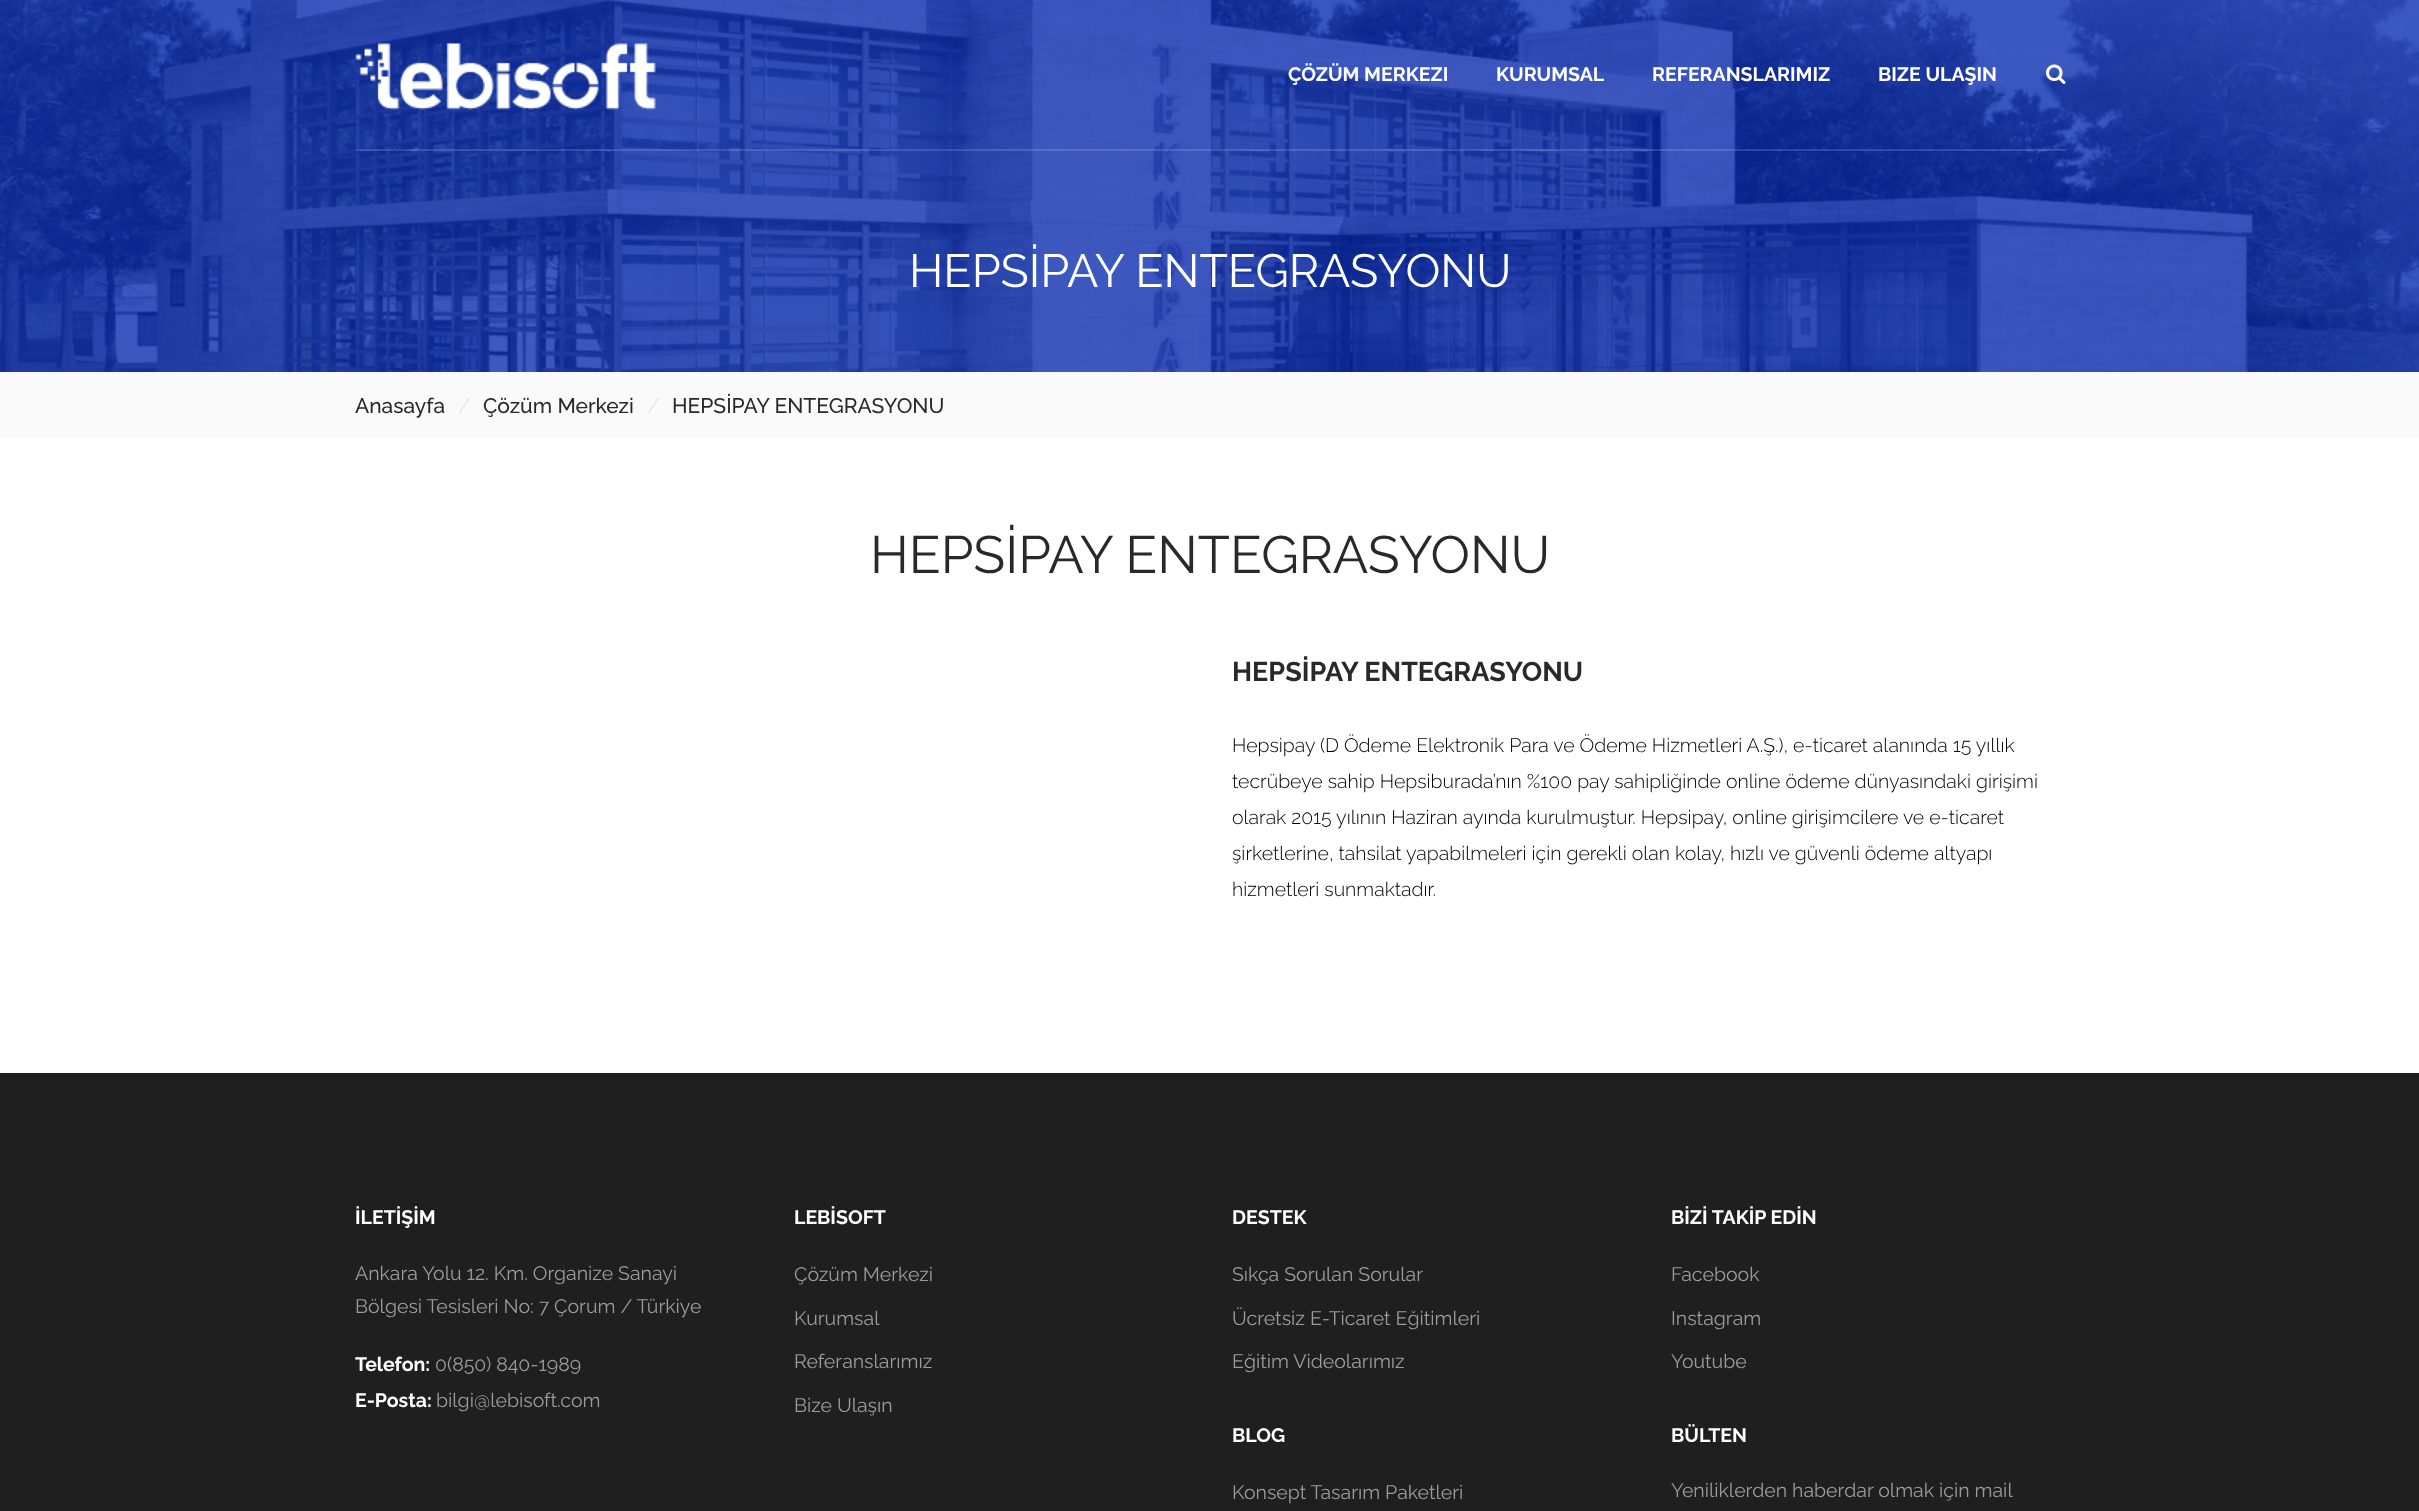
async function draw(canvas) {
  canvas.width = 2419;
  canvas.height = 1511;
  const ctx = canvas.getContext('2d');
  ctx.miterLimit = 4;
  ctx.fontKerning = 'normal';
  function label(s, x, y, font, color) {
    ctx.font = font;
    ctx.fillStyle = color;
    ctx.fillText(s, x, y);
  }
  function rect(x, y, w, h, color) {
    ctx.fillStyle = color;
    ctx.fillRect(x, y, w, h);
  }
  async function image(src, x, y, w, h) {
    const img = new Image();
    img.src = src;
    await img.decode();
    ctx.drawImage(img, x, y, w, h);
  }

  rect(0, 0, 2419, 1511, '#1f1f1f');
  await image('assets/img3.png', 0, 0, 2419, 372);
  rect(356, 149, 1710, 2, '#ffffff26');
  await image('assets/img1.png', 355, 43, 301, 67);
  label('ÇÖZÜM MERKEZI', 1288, 81, 'bold 19.5px Raleway', '#fff');
  label('KURUMSAL', 1496, 81, 'bold 19.5px Raleway', '#fff');
  label('REFERANSLARIMIZ', 1652, 81, 'bold 19.5px Raleway', '#fff');
  label('BIZE ULAŞIN', 1878, 81, 'bold 19.5px Raleway', '#fff');
  await image('assets/img2.png', 2046, 64, 20, 20);
  label('HEPSİPAY ENTEGRASYONU', 909, 287, '46.5px Raleway', '#fff');
  rect(0, 372, 2419, 66, '#fafafa');
  label('Anasayfa', 355, 413, '500 21px Raleway', '#292929');
  label('/', 458, 413, '21px Raleway', '#e5e4e4');
  label('Çözüm Merkezi', 483, 413, '500 21px Raleway', '#292929');
  label('/', 647, 413, '21px Raleway', '#e5e4e4');
  label('HEPSİPAY ENTEGRASYONU', 672, 413, '500 21px Raleway', '#292929');
  rect(0, 438, 2419, 635, '#fff');
  label('HEPSİPAY ENTEGRASYONU', 870, 573, '52.5px Raleway', '#292929');
  label('HEPSİPAY ENTEGRASYONU', 1232, 681, 'bold 27px Raleway', '#292929');
  label('Hepsipay (D Ödeme Elektronik Para ve Ödeme Hizmetleri A.Ş.), e-ticaret alanında 15 yıllık', 1232, 752, '300 19.5px Raleway', '#000');
  label('tecrübeye sahip Hepsiburada’nın %100 pay sahipliğinde online ödeme dünyasındaki girişimi', 1232, 788, '300 19.5px Raleway', '#000');
  label('olarak 2015 yılının Haziran ayında kurulmuştur. Hepsipay, online girişimcilere ve e-ticaret', 1232, 824, '300 19.5px Raleway', '#000');
  label('şirketlerine, tahsilat yapabilmeleri için gerekli olan kolay, hızlı ve güvenli ödeme altyapı', 1232, 860, '300 19.5px Raleway', '#000');
  label('hizmetleri sunmaktadır.', 1232, 896, '300 19.5px Raleway', '#000');
  label('İLETİŞİM', 355, 1224, 'bold 19.5px Raleway', '#fff');
  label('Ankara Yolu 12. Km. Organize Sanayi', 355, 1280, '19.5px Raleway', '#9b9b9b');
  label('Bölgesi Tesisleri No: 7 Çorum / Türkiye', 355, 1313, '19.5px Raleway', '#9b9b9b');
  label('Telefon:', 355, 1371, 'bold 19.5px Raleway', '#fff');
  label('0(850) 840-1989', 435, 1371, '19.5px Raleway', '#9b9b9b');
  label('E-Posta:', 355, 1407, 'bold 19.5px Raleway', '#fff');
  label('bilgi@lebisoft.com', 436, 1407, '19.5px Raleway', '#9b9b9b');
  label('LEBİSOFT', 794, 1224, 'bold 19.5px Raleway', '#fff');
  label('Çözüm Merkezi', 794, 1281, '19.5px Raleway', '#9b9b9b');
  label('Kurumsal', 794, 1325, '19.5px Raleway', '#9b9b9b');
  label('Referanslarımız', 794, 1368, '19.5px Raleway', '#9b9b9b');
  label('Bize Ulaşın', 794, 1412, '19.5px Raleway', '#9b9b9b');
  label('DESTEK', 1232, 1224, 'bold 19.5px Raleway', '#fff');
  label('Sıkça Sorulan Sorular', 1232, 1281, '19.5px Raleway', '#9b9b9b');
  label('Ücretsiz E-Ticaret Eğitimleri', 1232, 1325, '19.5px Raleway', '#9b9b9b');
  label('Eğitim Videolarımız', 1232, 1368, '19.5px Raleway', '#9b9b9b');
  label('BLOG', 1232, 1442, 'bold 19.5px Raleway', '#fff');
  label('Konsept Tasarım Paketleri', 1232, 1499, '19.5px Raleway', '#9b9b9b');
  label('BİZİ TAKİP EDİN', 1671, 1224, 'bold 19.5px Raleway', '#fff');
  label('Facebook', 1671, 1281, '19.5px Raleway', '#9b9b9b');
  label('Instagram', 1671, 1325, '19.5px Raleway', '#9b9b9b');
  label('Youtube', 1671, 1368, '19.5px Raleway', '#9b9b9b');
  label('BÜLTEN', 1671, 1442, 'bold 19.5px Raleway', '#fff');
  label('Yeniliklerden haberdar olmak için mail', 1671, 1497, '19.5px Raleway', '#9b9b9b');
}

draw(document.querySelector('canvas'));
